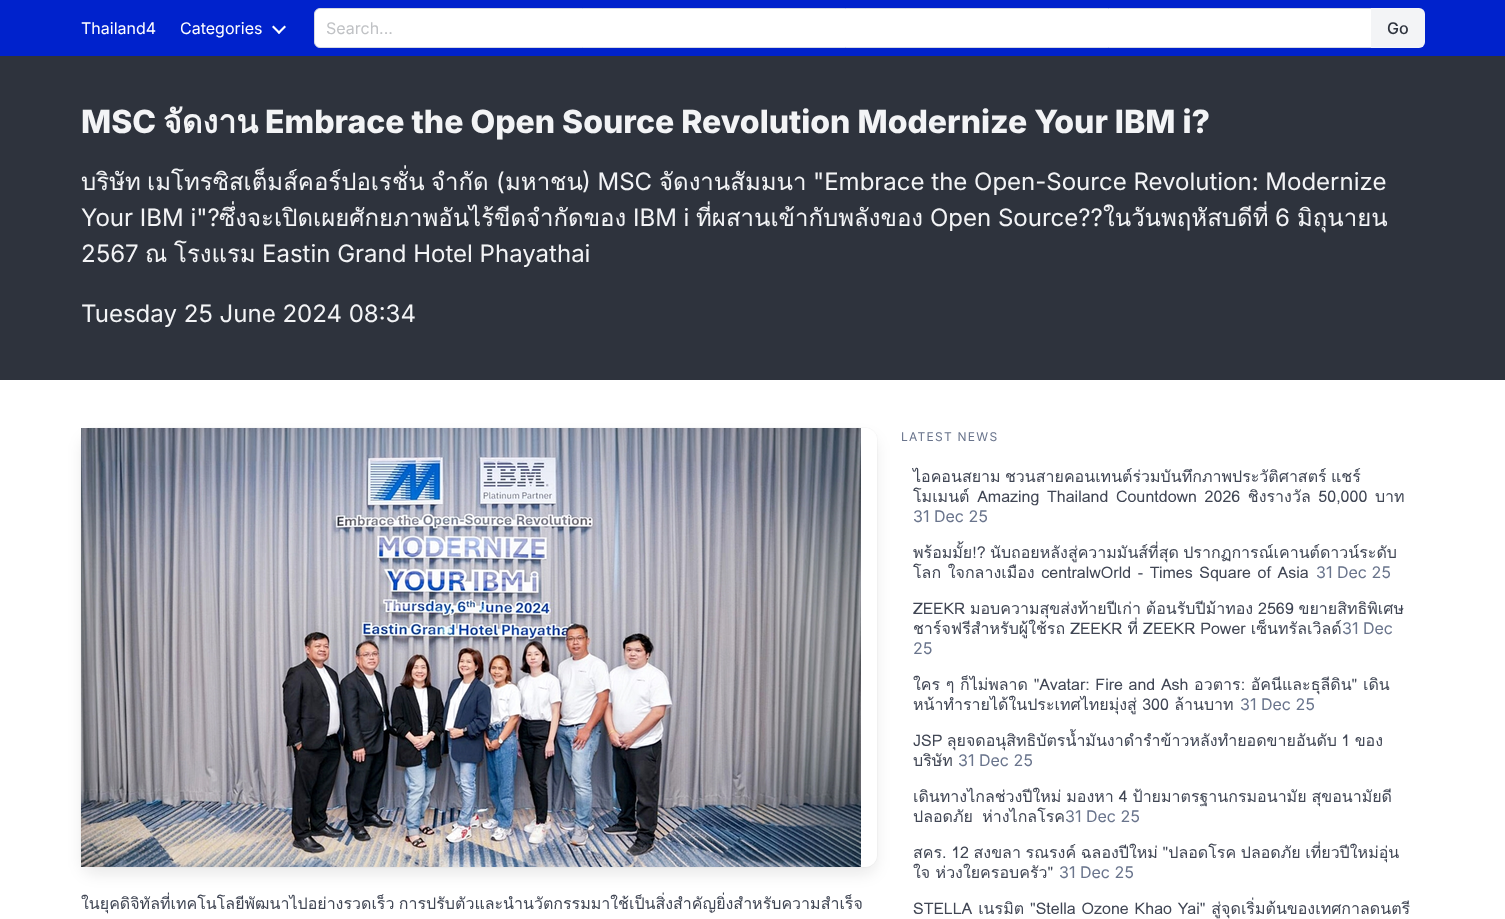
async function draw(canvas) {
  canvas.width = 1505;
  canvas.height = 919;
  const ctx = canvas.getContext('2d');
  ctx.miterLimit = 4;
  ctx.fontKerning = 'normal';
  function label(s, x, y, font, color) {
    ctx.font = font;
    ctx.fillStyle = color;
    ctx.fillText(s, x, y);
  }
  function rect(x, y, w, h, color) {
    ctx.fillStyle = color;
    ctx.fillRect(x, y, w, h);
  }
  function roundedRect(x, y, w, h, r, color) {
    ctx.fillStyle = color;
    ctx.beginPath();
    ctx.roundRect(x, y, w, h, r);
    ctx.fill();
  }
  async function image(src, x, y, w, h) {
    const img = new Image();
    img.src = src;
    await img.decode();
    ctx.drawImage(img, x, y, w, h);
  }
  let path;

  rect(0, 0, 1505, 919, '#fff');
  rect(0, 0, 1505, 56, '#02c');
  label('Thailand4', 81, 34, '16px Inter', '#fff');
  label('Categories', 180, 34, '16px Inter', '#fff');
  path = new Path2D('M277.5 32.5L284.5 25.5L286 27L279 34Z');
  ctx.fill(path);
  path = new Path2D('M272 27L273.5 25.5L280.5 32.5L279 34Z');
  ctx.fill(path);
  ctx.beginPath();
  ctx.roundRect(314.5, 8.5, 1057, 39, [5.5, 0, 0, 5.5]);
  ctx.fill();
  ctx.strokeStyle = '#d6d9e0';
  ctx.stroke();
  label('Search...', 326, 34, '16px Inter', '#c0c2c5');
  ctx.fillStyle = '#f3f4f6';
  ctx.beginPath();
  ctx.roundRect(1371, 8, 54, 40, [0, 6, 6, 0]);
  ctx.fill();
  label('Go', 1387, 34, '500 16px Inter', '#2e333d');
  rect(0, 56, 1505, 324, '#2e333d');
  label('MSC', 81, 133, '800 32px Inter', '#f3f4f6');
  label('จัดงาน', 163, 133, 'bold 32px Loma', '#f3f4f6');
  label('Embrace the Open Source Revolution Modernize Your IBM i?', 265, 133, '800 32px Inter', '#f3f4f6');
  label('บริษัท', 81, 190, '24px Loma', '#f3f4f6');
  label('เมโทรซิสเต็มส์คอร์ปอเรชั่น', 147, 190, '24px Loma', '#f3f4f6');
  label('จำกัด', 431, 190, '24px Loma', '#f3f4f6');
  label('(', 496, 190, '24px Inter', '#f3f4f6');
  label('มหาชน', 505, 190, '24px Loma', '#f3f4f6');
  label(') MSC', 582, 190, '24px Inter', '#f3f4f6');
  label('จัดงานสัมมนา', 659, 190, '24px Loma', '#f3f4f6');
  label('"Embrace the Open-Source Revolution: Modernize', 813, 190, '24px Inter', '#f3f4f6');
  label('Your IBM i"?', 81, 226, '24px Inter', '#f3f4f6');
  label('ซึ่งจะเปิดเผยศักยภาพอันไร้ขีดจำกัดของ', 219, 226, '24px Loma', '#f3f4f6');
  label('IBM i', 633, 226, '24px Inter', '#f3f4f6');
  label('ที่ผสานเข้ากับพลังของ', 696, 226, '24px Loma', '#f3f4f6');
  label('Open Source??', 930, 226, '24px Inter', '#f3f4f6');
  label('ในวันพฤหัสบดีที่', 1103, 226, '24px Loma', '#f3f4f6');
  label('6', 1275, 226, '24px Inter', '#f3f4f6');
  label('มิถุนายน', 1297, 226, '24px Loma', '#f3f4f6');
  label('2567', 81, 262, '24px Inter', '#f3f4f6');
  label('ณ', 145, 262, '24px Loma', '#f3f4f6');
  label('โรงแรม', 174, 262, '24px Loma', '#f3f4f6');
  label('Eastin Grand Hotel Phayathai', 262, 262, '24px Inter', '#f3f4f6');
  label('Tuesday 25 June 2024 08:34', 81, 322, '24px Inter', '#f3f4f6');
  ctx.beginPath();
  ctx.roundRect(80.5, 427.5, 797, 440, 12.5);
  ctx.strokeStyle = '#fafafa';
  ctx.stroke();
  ctx.fillStyle = '#090a0c1a';
  ctx.filter = 'blur(8px)';
  ctx.beginPath();
  ctx.roundRect(83, 438, 792, 435, 10);
  ctx.fill();
  ctx.filter = 'none';
  roundedRect(81, 428, 796, 439, 12, '#fff');
  await image('assets/img1.png', 81, 428, 780, 439);
  ctx.wordSpacing = '-1px';
  label('ในยุคดิจิทัลที่เทคโนโลยีพัฒนาไปอย่างรวดเร็ว การปรับตัวและนำนวัตกรรมมาใช้เป็นสิ่งสำคัญยิ่งสำหรับความสำเร็จ', 81, 909, '16px Loma', '#404654');
  ctx.letterSpacing = '1.25px';
  ctx.wordSpacing = '0px';
  label('LATEST NEWS', 901, 441, '12px Inter', '#69748c');
  ctx.letterSpacing = '0px';
  ctx.wordSpacing = '-1px';
  label('ไอคอนสยาม ชวนสายคอนเทนต์ร่วมบันทึกภาพประวัติศาสตร์ แชร์', 913, 482, '16px Loma', '#404654');
  ctx.wordSpacing = '2.25px';
  label('โมเมนต์ Amazing Thailand Countdown 2026 ชิงรางวัล 50,000 บาท', 913, 502, '16px Loma', '#404654');
  ctx.wordSpacing = '0px';
  label('31 Dec 25', 913, 522, '16px Inter', '#69748c');
  ctx.wordSpacing = '-1px';
  label('พร้อมมั้ย!? นับถอยหลังสู่ความมันส์ที่สุด ปรากฏการณ์เคานต์ดาวน์ระดับ', 913, 558, '16px Loma', '#404654');
  ctx.wordSpacing = '1.25px';
  label('โลก ใจกลางเมือง centralwOrld - Times Square of Asia', 913, 578, '16px Loma', '#404654');
  ctx.wordSpacing = '0px';
  label('31 Dec 25', 1316, 578, '16px Inter', '#69748c');
  ctx.wordSpacing = '-0.5px';
  label('ZEEKR มอบความสุขส่งท้ายปีเก่า ต้อนรับปีม้าทอง 2569 ขยายสิทธิพิเศษ', 913, 614, '16px Loma', '#404654');
  ctx.wordSpacing = '-0.25px';
  label('ชาร์จฟรีสำหรับผู้ใช้รถ ZEEKR ที่ ZEEKR Power เซ็นทรัลเวิลด์', 913, 634, '16px Loma', '#404654');
  ctx.wordSpacing = '0px';
  label('31 Dec', 1342, 634, '16px Inter', '#69748c');
  label('25', 913, 654, '16px Inter', '#69748c');
  ctx.wordSpacing = '0.25px';
  label('ใคร ๆ ก็ไม่พลาด "Avatar: Fire and Ash อวตาร: อัคนีและธุลีดิน" เดิน', 913, 690, '16px Loma', '#404654');
  ctx.wordSpacing = '0px';
  label('หน้าทำรายได้ในประเทศไทยมุ่งสู่ 300 ล้านบาท', 913, 710, '16px Loma', '#404654');
  label('31 Dec 25', 1240, 710, '16px Inter', '#69748c');
  ctx.wordSpacing = '-1px';
  label('JSP ลุยจดอนุสิทธิบัตรน้ำมันงาดำรำข้าวหลังทำยอดขายอันดับ 1 ของ', 913, 746, '16px Loma', '#404654');
  ctx.wordSpacing = '0px';
  label('บริษัท', 913, 766, '16px Loma', '#404654');
  label('31 Dec 25', 958, 766, '16px Inter', '#69748c');
  ctx.wordSpacing = '-0.5px';
  label('เดินทางไกลช่วงปีใหม่ มองหา 4 ป้ายมาตรฐานกรมอนามัย สุขอนามัยดี', 913, 802, '16px Loma', '#404654');
  ctx.wordSpacing = '4px';
  label('ปลอดภัย ห่างไกลโรค', 913, 822, '16px Loma', '#404654');
  ctx.wordSpacing = '0px';
  label('31 Dec 25', 1065, 822, '16px Inter', '#69748c');
  ctx.wordSpacing = '-0.75px';
  label('สคร. 12 สงขลา รณรงค์ ฉลองปีใหม่ "ปลอดโรค ปลอดภัย เที่ยวปีใหม่อุ่น', 913, 858, '16px Loma', '#404654');
  ctx.wordSpacing = '0px';
  label('ใจ ห่วงใยครอบครัว"', 913, 878, '16px Loma', '#404654');
  label('31 Dec 25', 1059, 878, '16px Inter', '#69748c');
  ctx.wordSpacing = '0.5px';
  label('STELLA เนรมิต "Stella Ozone Khao Yai" สู่จุดเริ่มต้นของเทศกาลดนตรี', 913, 914, '16px Loma', '#404654');
}

draw(document.querySelector('canvas'));
